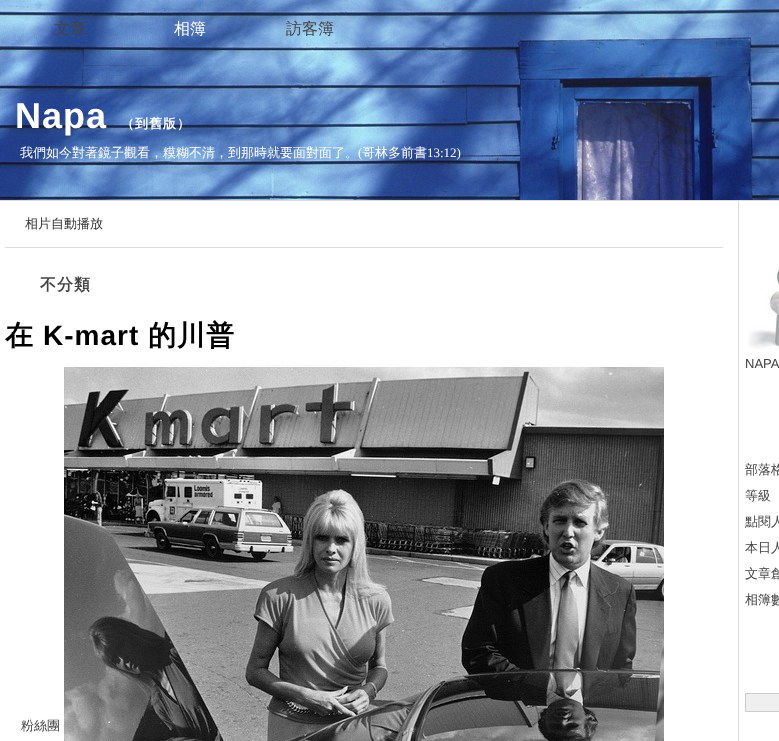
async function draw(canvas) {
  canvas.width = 779;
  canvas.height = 741;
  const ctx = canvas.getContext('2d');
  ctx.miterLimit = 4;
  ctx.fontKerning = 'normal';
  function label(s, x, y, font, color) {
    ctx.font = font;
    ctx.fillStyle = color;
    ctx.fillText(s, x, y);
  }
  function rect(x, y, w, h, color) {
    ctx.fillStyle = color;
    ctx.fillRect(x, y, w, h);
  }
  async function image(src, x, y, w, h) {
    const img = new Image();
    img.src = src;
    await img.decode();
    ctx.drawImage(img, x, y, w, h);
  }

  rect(0, 0, 779, 741, '#fff');
  await image('assets/img1.png', 0, 0, 779, 200);
  label('文章', 54, 34, '500 16px WenQuanYi Zen Hei', '#444');
  label('相簿', 174, 34, '500 16px WenQuanYi Zen Hei', '#fff');
  label('訪客簿', 286, 34, '500 16px WenQuanYi Zen Hei', '#444');
  rect(0, 200, 779, 1, '#ddd');
  ctx.letterSpacing = '1px';
  label('Napa', 15, 128, 'bold 36px Liberation Sans', '#fff');
  label('（到舊版）', 121, 128, 'bold 13px WenQuanYi Zen Hei', '#fff');
  ctx.letterSpacing = '0px';
  label('我們如今對著鏡子觀看，糢糊不清，到那時就要面對面了。', 20, 157, '500 13px WenQuanYi Zen Hei', '#fff');
  label('(', 358, 157, '13px Liberation Serif', '#fff');
  label('哥林多前書', 362, 157, '500 13px WenQuanYi Zen Hei', '#fff');
  label('13:12)', 427, 157, '13px Liberation Serif', '#fff');
  rect(738, 201, 1, 540, '#ddd');
  rect(5, 247, 718, 1, '#ddd');
  label('相片自動播放', 25, 228, '500 13px WenQuanYi Zen Hei', '#333');
  ctx.letterSpacing = '1px';
  label('不分類', 40, 290, 'bold 16px WenQuanYi Zen Hei', '#444');
  label('在', 5, 345, 'bold 28px WenQuanYi Zen Hei', '#000');
  label('K-mart', 43, 345, 'bold 28px Liberation Sans', '#000');
  label('的川普', 148, 345, 'bold 28px WenQuanYi Zen Hei', '#000');
  await image('assets/img2.png', 64, 367, 600, 374);
  await image('assets/img3.png', 748, 270, 31, 79);
  ctx.letterSpacing = '0px';
  label('NAPA', 745, 368, '13px Liberation Sans', '#444');
  label('部落格', 745, 474, '500 13px WenQuanYi Zen Hei', '#444');
  label('等級', 745, 500, '500 13px WenQuanYi Zen Hei', '#444');
  label('點閱人', 745, 526, '500 13px WenQuanYi Zen Hei', '#444');
  label('本日人', 745, 552, '500 13px WenQuanYi Zen Hei', '#444');
  label('文章創', 745, 578, '500 13px WenQuanYi Zen Hei', '#444');
  label('相簿數', 745, 604, '500 13px WenQuanYi Zen Hei', '#444');
  ctx.fillStyle = '#efefef';
  ctx.beginPath();
  ctx.rect(745.5, 693.5, 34, 18);
  ctx.fill();
  ctx.strokeStyle = '#ccc';
  ctx.stroke();
  label('粉絲團', 21, 730, '500 13px WenQuanYi Zen Hei', '#444');
}

draw(document.querySelector('canvas'));
